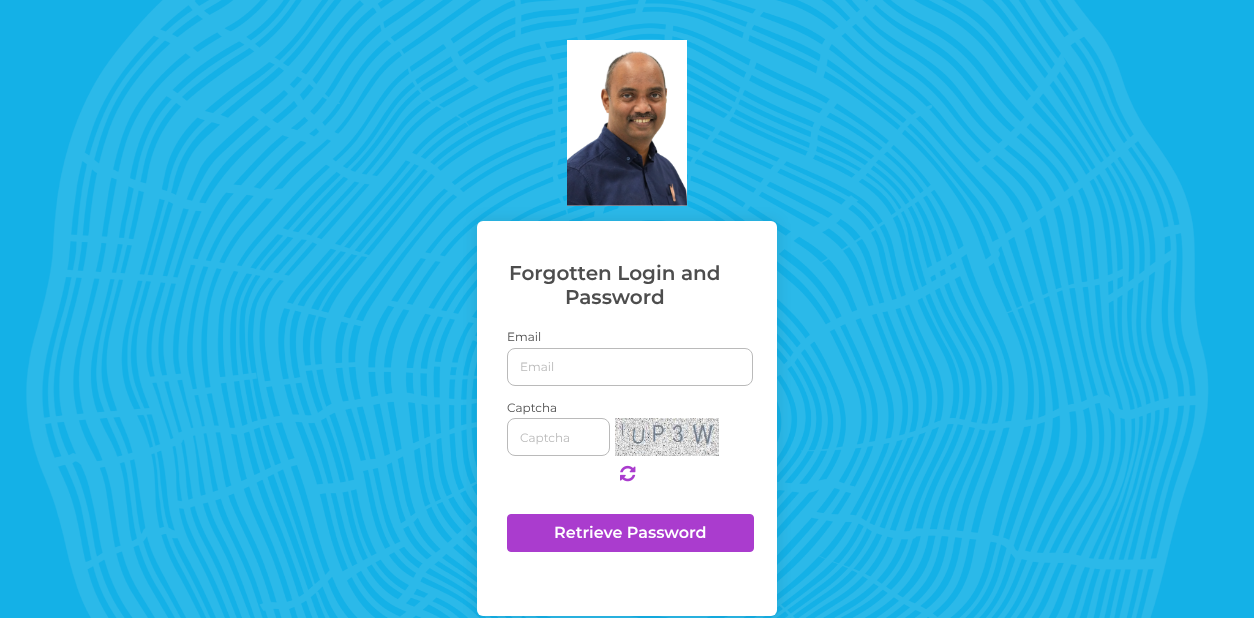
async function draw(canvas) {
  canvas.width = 1254;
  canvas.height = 618;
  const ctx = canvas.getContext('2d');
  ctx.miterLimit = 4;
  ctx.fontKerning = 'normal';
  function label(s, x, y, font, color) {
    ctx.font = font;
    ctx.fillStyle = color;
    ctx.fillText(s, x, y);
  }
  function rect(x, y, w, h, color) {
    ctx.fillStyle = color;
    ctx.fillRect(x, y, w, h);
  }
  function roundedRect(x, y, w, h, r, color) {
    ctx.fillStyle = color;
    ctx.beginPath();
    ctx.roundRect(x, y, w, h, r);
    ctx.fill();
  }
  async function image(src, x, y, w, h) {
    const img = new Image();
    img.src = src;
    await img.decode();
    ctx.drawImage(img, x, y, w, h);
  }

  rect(0, 0, 1254, 618, '#14b1e7');
  await image('assets/img1.png', 26, 0, 1183, 618);
  await image('assets/img2.png', 567, 40, 120, 166);
  ctx.fillStyle = '#0000001a';
  ctx.filter = 'blur(7.5px)';
  ctx.beginPath();
  ctx.roundRect(477, 221, 300, 395, 6);
  ctx.fill();
  ctx.filter = 'none';
  roundedRect(477, 221, 300, 395, 6, '#fff');
  label('Forgotten Login and', 509, 280, '600 20px Montserrat', '#4d4d4d');
  label('Password', 565, 304, '600 20px Montserrat', '#4d4d4d');
  label('Email', 507, 341, '12px Montserrat', '#4d4d4d');
  ctx.beginPath();
  ctx.roundRect(507.5, 348.5, 245, 37, 7.5);
  ctx.strokeStyle = '#bababa';
  ctx.stroke();
  label('Email', 520, 371, '12px Montserrat', '#bababa');
  label('Captcha', 507, 412, '12px Montserrat', '#4d4d4d');
  ctx.beginPath();
  ctx.roundRect(507.5, 418.5, 102, 37, 7.5);
  ctx.stroke();
  label('Captcha', 520, 442, '12px Montserrat', '#bababa');
  await image('assets/img3.png', 615, 418, 104, 38);
  await image('assets/img4.png', 620, 465, 16, 17);
  ctx.fillStyle = '#aa3cce';
  ctx.beginPath();
  ctx.roundRect(507.5, 514.5, 246, 37, 3.5);
  ctx.fill();
  ctx.strokeStyle = '#aa3cce';
  ctx.stroke();
  label('Retrieve Password', 554, 538, '600 16px Montserrat', '#fff');
}

draw(document.querySelector('canvas'));
